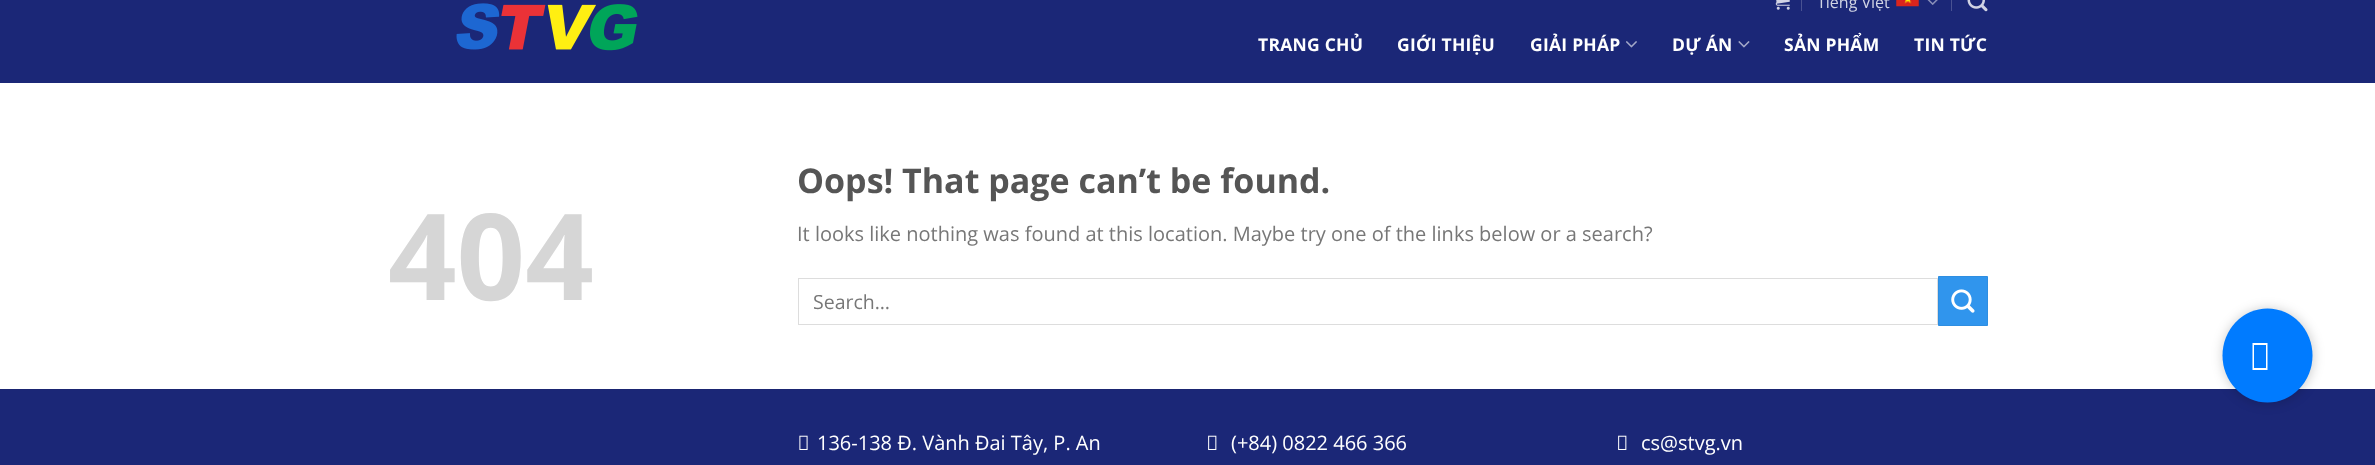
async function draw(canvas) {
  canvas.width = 2375;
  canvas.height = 465;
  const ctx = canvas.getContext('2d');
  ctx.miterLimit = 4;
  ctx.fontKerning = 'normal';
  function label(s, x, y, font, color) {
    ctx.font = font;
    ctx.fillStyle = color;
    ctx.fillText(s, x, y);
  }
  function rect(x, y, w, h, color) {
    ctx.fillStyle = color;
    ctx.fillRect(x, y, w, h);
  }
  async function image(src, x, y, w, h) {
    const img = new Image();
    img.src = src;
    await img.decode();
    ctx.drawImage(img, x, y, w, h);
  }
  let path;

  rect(0, 0, 2375, 465, '#fff');
  rect(0, 0, 2375, 83, '#1b2777');
  await image('assets/img1.png', 456, 3, 182, 48);
  await image('assets/img2.png', 1775, 0, 15, 10);
  rect(1801, 0, 1, 11, '#495292');
  label('Tiếng Việt', 1817, 8, '16px Open Sans', '#d1d4e4');
  await image('assets/img3.png', 1896, 0, 23, 7);
  await image('assets/img4.png', 1927, 0, 11, 5);
  rect(1951, 0, 1, 11, '#495292');
  await image('assets/img5.png', 1967, 0, 21, 12);
  ctx.letterSpacing = '0.25px';
  label('TRANG CHỦ', 1258, 51, 'bold 17.5px Open Sans', '#fff');
  label('GIỚI THIỆU', 1397, 51, 'bold 17.5px Open Sans', '#fff');
  label('GIẢI PHÁP', 1530, 51, 'bold 17.5px Open Sans', '#fff');
  await image('assets/img6.png', 1626, 41, 11, 7);
  label('DỰ ÁN', 1672, 51, 'bold 17.5px Open Sans', '#fff');
  await image('assets/img7.png', 1738, 41, 12, 7);
  label('SẢN PHẨM', 1784, 51, 'bold 17.5px Open Sans', '#fff');
  label('TIN TỨC', 1914, 51, 'bold 17.5px Open Sans', '#fff');
  ctx.letterSpacing = '0px';
  label('404', 388, 300, 'bold 120px Open Sans', '#d6d6d6');
  label('Oops! That page can’t be found.', 797, 193, 'bold 34px Open Sans', '#555');
  label('It looks like nothing was found at this location. Maybe try one of the links below or a search?', 797, 241, '20px Open Sans', '#777');
  ctx.strokeStyle = '#ddd';
  ctx.strokeRect(798.5, 278.5, 1139, 46);
  label('Search…', 813, 309, '19.5px Open Sans', '#777');
  ctx.fillStyle = '#3095ed';
  ctx.beginPath();
  ctx.rect(1938.5, 276.5, 49, 49);
  ctx.fill();
  ctx.strokeStyle = '#2e8ee1';
  ctx.stroke();
  await image('assets/img8.png', 1951, 289, 24, 24);
  rect(0, 390, 2375, 75, '#1b2777');
  rect(0, 389, 2375, 1, '#1a2571');
  ctx.fillStyle = '#00000033';
  ctx.filter = 'blur(6px)';
  ctx.beginPath();
  ctx.roundRect(2223, 309, 90, 94, 45);
  ctx.fill();
  ctx.filter = 'none';
  ctx.fillStyle = '#007bff';
  ctx.beginPath();
  ctx.ellipse(2267.5, 355.5, 45, 47, 0, 0, 2 * Math.PI);
  ctx.fill();
  ctx.fillStyle = '#fff';
  path = new Path2D('M2252.5 370V343H2267.5V370ZM2254 368H2266V345H2254Z');
  ctx.fill(path);
  await image('assets/img9.png', 799, 435, 9, 15);
  label('136-138 Đ. Vành Đai Tây, P. An', 817, 450, '20px Open Sans', '#fff');
  await image('assets/img10.png', 1208, 435, 9, 15);
  label('(+84) 0822 466 366', 1231, 450, '20px Open Sans', '#fff');
  await image('assets/img10.png', 1618, 435, 9, 15);
  label('cs@stvg.vn', 1641, 450, '20px Open Sans', '#fff');
}

draw(document.querySelector('canvas'));
